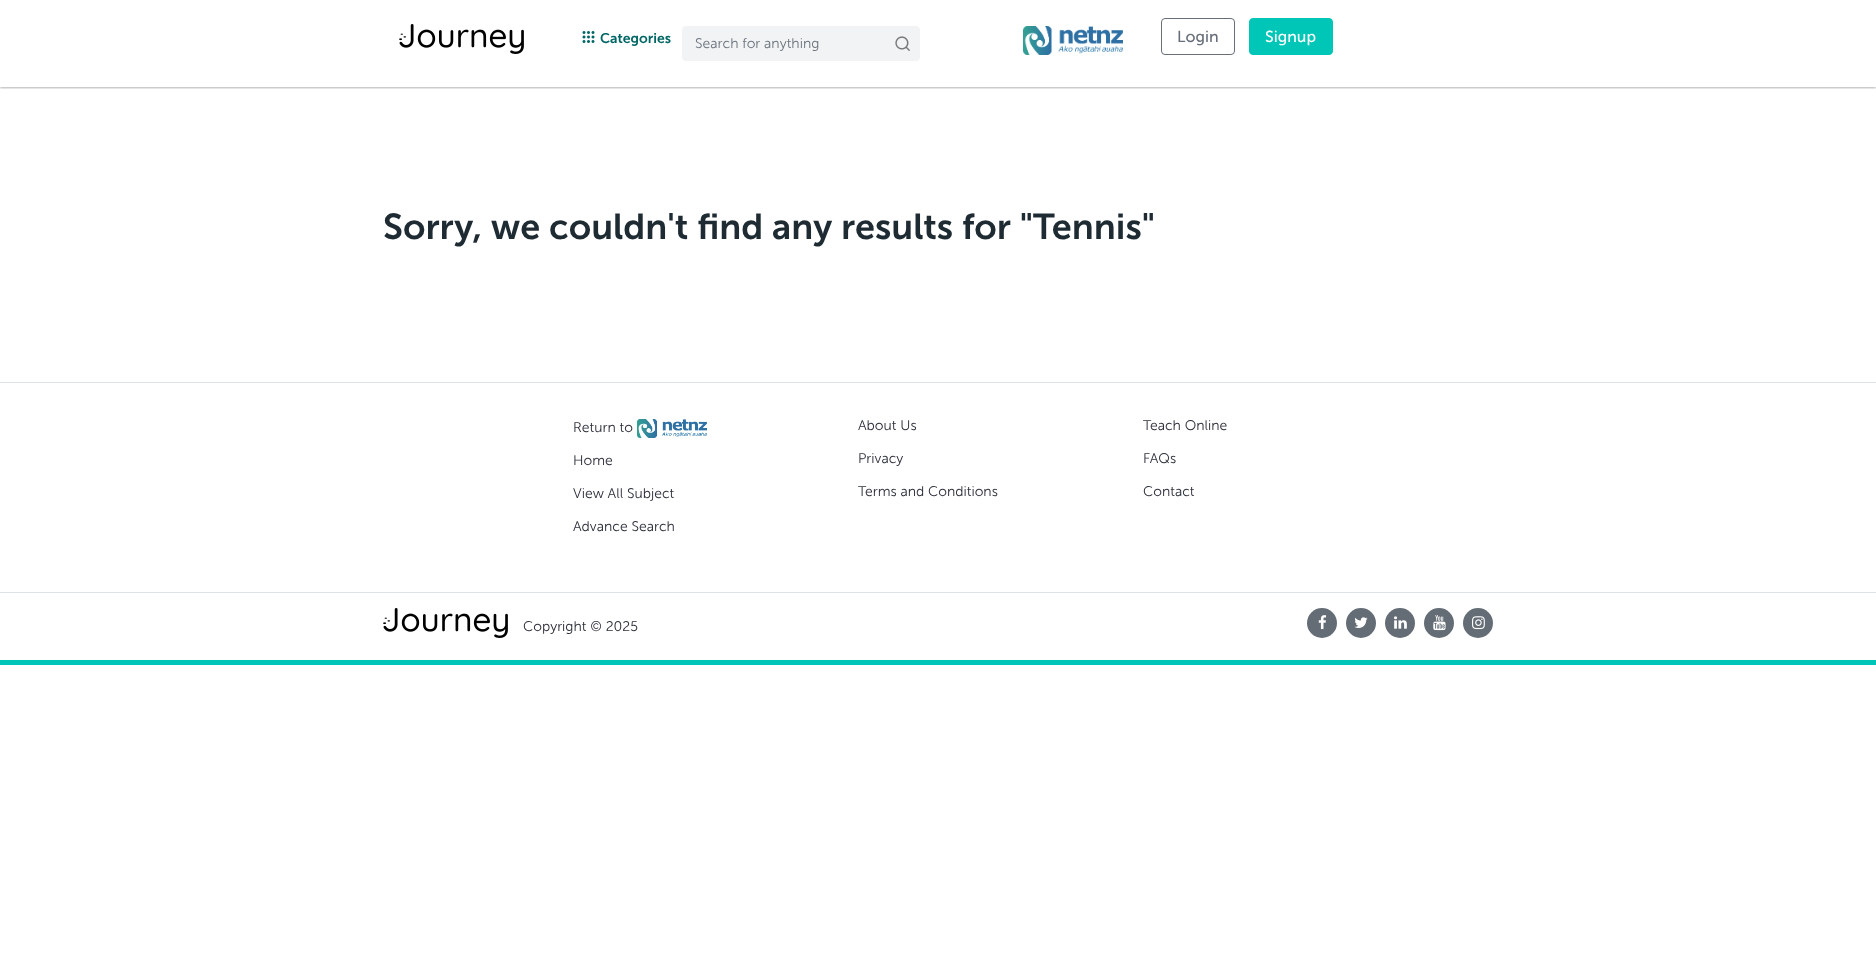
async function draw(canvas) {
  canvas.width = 1876;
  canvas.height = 979;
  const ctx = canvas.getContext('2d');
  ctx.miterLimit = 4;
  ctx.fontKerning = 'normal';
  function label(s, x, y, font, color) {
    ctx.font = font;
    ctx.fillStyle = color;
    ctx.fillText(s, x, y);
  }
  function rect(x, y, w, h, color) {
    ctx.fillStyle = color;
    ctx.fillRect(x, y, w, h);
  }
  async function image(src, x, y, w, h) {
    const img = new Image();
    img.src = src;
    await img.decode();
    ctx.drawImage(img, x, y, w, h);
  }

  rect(0, 0, 1876, 979, '#fff');
  ctx.save();
  ctx.beginPath();
  ctx.rect(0, 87, 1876, 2);
  ctx.clip();
  ctx.fillStyle = '#0000004d';
  ctx.filter = 'blur(1px)';
  ctx.beginPath();
  ctx.rect(0, 1, 1876, 87);
  ctx.fill();
  ctx.filter = 'none';
  ctx.restore();
  await image('assets/img1.png', 399, 24, 125, 30);
  await image('assets/img2.png', 582, 31, 13, 12);
  label('Categories', 600, 43, '600 14px Museo Sans', '#066');
  ctx.fillStyle = '#f2f3f5';
  ctx.beginPath();
  ctx.roundRect(682.5, 26.5, 237, 34, 3.5);
  ctx.fill();
  ctx.strokeStyle = '#f2f3f5';
  ctx.stroke();
  label('Search for anything', 695, 48, '300 14px Museo Sans', '#6c757d');
  await image('assets/img3.png', 895, 36, 15, 15);
  await image('assets/img4.png', 1023, 26, 100, 29);
  ctx.beginPath();
  ctx.roundRect(1161.5, 18.5, 73, 36, 3.5);
  ctx.strokeStyle = '#686f7a';
  ctx.stroke();
  label('Login', 1177, 42, '16px Museo Sans', '#686f7a');
  ctx.fillStyle = '#00c6b7';
  ctx.beginPath();
  ctx.roundRect(1249.5, 18.5, 83, 36, 3.5);
  ctx.fill();
  ctx.strokeStyle = '#00c6b7';
  ctx.stroke();
  label('Signup', 1265, 42, '16px Museo Sans', '#fff');
  label('Sorry, we couldn\'t find any results for "Tennis"', 383, 239, '600 36px Museo Sans', '#1f2b33');
  rect(0, 382, 1876, 1, '#dee2e6');
  label('Return to', 573, 432, '300 14px Museo Sans', '#2c2f3a');
  await image('assets/img5.png', 637, 419, 70, 19);
  label('Home', 573, 465, '300 14px Museo Sans', '#2c2f3a');
  label('View All Subject', 573, 498, '300 14px Museo Sans', '#2c2f3a');
  label('Advance Search', 573, 531, '300 14px Museo Sans', '#2c2f3a');
  label('About Us', 858, 430, '300 14px Museo Sans', '#2c2f3a');
  label('Privacy', 858, 463, '300 14px Museo Sans', '#2c2f3a');
  label('Terms and Conditions', 858, 496, '300 14px Museo Sans', '#2c2f3a');
  label('Teach Online', 1143, 430, '300 14px Museo Sans', '#2c2f3a');
  label('FAQs', 1143, 463, '300 14px Museo Sans', '#2c2f3a');
  label('Contact', 1143, 496, '300 14px Museo Sans', '#2c2f3a');
  rect(0, 592, 1876, 1, '#dee2e6');
  rect(0, 660, 1876, 5, '#00c6b7');
  await image('assets/img1.png', 383, 608, 125, 30);
  label('Copyright © 2025', 523, 631, '300 14px Museo Sans', '#2c2f3a');
  ctx.fillStyle = '#646d75';
  ctx.beginPath();
  ctx.arc(1322, 623, 15, 0, 2 * Math.PI);
  ctx.fill();
  await image('assets/img6.png', 1318, 615, 9, 15);
  ctx.beginPath();
  ctx.arc(1361, 623, 15, 0, 2 * Math.PI);
  ctx.fill();
  await image('assets/img7.png', 1354, 617, 14, 11);
  ctx.beginPath();
  ctx.arc(1400, 623, 15, 0, 2 * Math.PI);
  ctx.fill();
  await image('assets/img8.png', 1394, 616, 13, 13);
  ctx.beginPath();
  ctx.arc(1439, 623, 15, 0, 2 * Math.PI);
  ctx.fill();
  await image('assets/img9.png', 1433, 615, 13, 16);
  ctx.beginPath();
  ctx.arc(1478, 623, 15, 0, 2 * Math.PI);
  ctx.fill();
  await image('assets/img10.png', 1472, 616, 13, 14);
}

draw(document.querySelector('canvas'));
